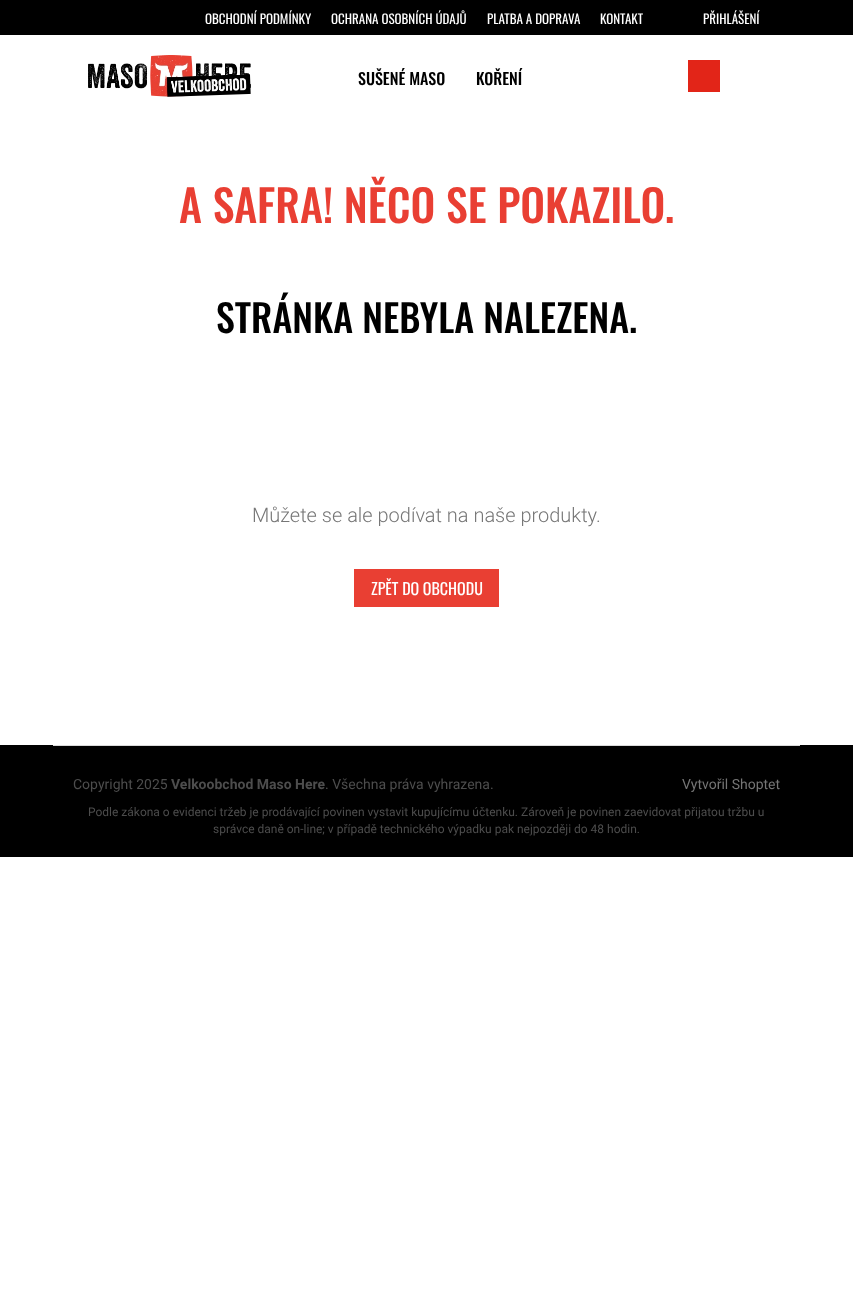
async function draw(canvas) {
  canvas.width = 868;
  canvas.height = 1297;
  const ctx = canvas.getContext('2d');
  ctx.miterLimit = 4;
  ctx.fontKerning = 'normal';
  function label(s, x, y, font, color) {
    ctx.font = font;
    ctx.fillStyle = color;
    ctx.fillText(s, x, y);
  }
  function rect(x, y, w, h, color) {
    ctx.fillStyle = color;
    ctx.fillRect(x, y, w, h);
  }
  async function image(src, x, y, w, h) {
    const img = new Image();
    img.src = src;
    await img.decode();
    ctx.drawImage(img, x, y, w, h);
  }

  rect(0, 0, 868, 1297, '#fff');
  rect(0, 0, 853, 35, '#000');
  label('OBCHODNÍ PODMÍNKY', 205, 24, '13px Oswald', '#fff');
  label('OCHRANA OSOBNÍCH ÚDAJŮ', 331, 24, '13px Oswald', '#fff');
  label('PLATBA A DOPRAVA', 487, 24, '13px Oswald', '#fff');
  label('KONTAKT', 600, 24, '13px Oswald', '#fff');
  label('PŘIHLÁŠENÍ', 703, 24, '13px Oswald', '#fff');
  await image('assets/img1.png', 88, 55, 163, 42);
  label('SUŠENÉ MASO', 358, 85, '500 16px Oswald', '#000');
  label('KOŘENÍ', 476, 85, '500 16px Oswald', '#000');
  rect(688, 60, 32, 32, '#e22518');
  label('A SAFRA! NĚCO SE POKAZILO.', 179, 223, '500 44px Oswald', '#e93f33');
  label('STRÁNKA NEBYLA NALEZENA.', 216, 333, '500 38px Oswald', '#000');
  label('Můžete se ale podívat na naše produkty.', 252, 522, '300 20px Roboto', '#767676');
  rect(354, 569, 145, 38, '#e93f33');
  label('ZPĚT DO OBCHODU', 371, 595, '16px Oswald', '#fff');
  rect(0, 745, 853, 112, '#000');
  rect(53, 745, 747, 1, '#dadada');
  label('Copyright 2025', 73, 789, '14px Roboto', '#4d4d4d');
  label('Velkoobchod Maso Here', 171, 789, 'bold 14px Roboto', '#4d4d4d');
  label('. Všechna práva vyhrazena.', 325, 789, '14px Roboto', '#4d4d4d');
  label('Vytvořil Shoptet', 682, 789, '14px Roboto', '#767676');
  label('Podle zákona o evidenci tržeb je prodávající povinen vystavit kupujícímu účtenku. Zároveň je povinen zaevidovat přijatou tržbu u', 88, 816, '12px Roboto', '#4d4d4d');
  label('správce daně on-line; v případě technického výpadku pak nejpozději do 48 hodin.', 213, 833, '12px Roboto', '#4d4d4d');
}

draw(document.querySelector('canvas'));
